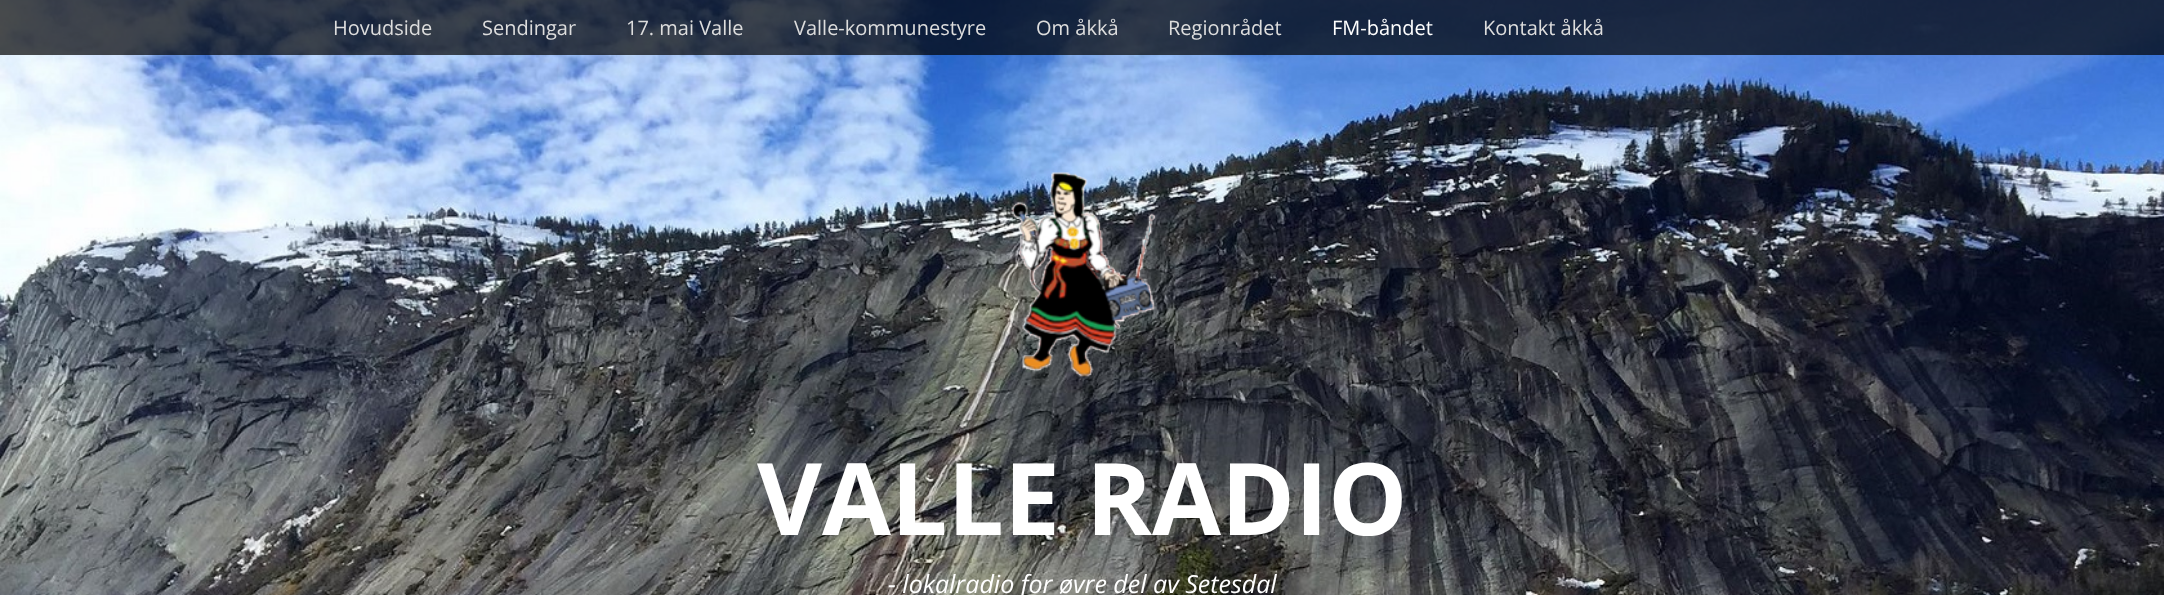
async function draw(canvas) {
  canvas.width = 2164;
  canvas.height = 595;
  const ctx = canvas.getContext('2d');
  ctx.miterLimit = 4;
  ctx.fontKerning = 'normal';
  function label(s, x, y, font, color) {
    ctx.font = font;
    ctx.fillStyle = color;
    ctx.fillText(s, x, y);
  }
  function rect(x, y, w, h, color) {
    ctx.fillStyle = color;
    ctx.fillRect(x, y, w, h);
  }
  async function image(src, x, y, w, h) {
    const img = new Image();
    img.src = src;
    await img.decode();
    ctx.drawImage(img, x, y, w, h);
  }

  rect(0, 0, 2164, 595, '#fff');
  await image('assets/img1.png', 0, 0, 2164, 595);
  rect(0, 0, 2164, 55, '#000000b3');
  label('Hovudside', 333, 35, '20px Open Sans', '#ddd');
  label('Sendingar', 482, 35, '20px Open Sans', '#ddd');
  label('17. mai Valle', 626, 35, '20px Open Sans', '#ddd');
  label('Valle-kommunestyre', 794, 35, '20px Open Sans', '#ddd');
  label('Om åkkå', 1036, 35, '20px Open Sans', '#ddd');
  label('Regionrådet', 1168, 35, '20px Open Sans', '#ddd');
  label('FM-båndet', 1332, 35, '20px Open Sans', '#fff');
  label('Kontakt åkkå', 1483, 35, '20px Open Sans', '#ddd');
  await image('assets/img2.png', 1011, 172, 145, 205);
  label('VALLE RADIO', 757, 535, 'bold 100px Open Sans', '#fff');
  label('- lokalradio for øvre del av Setesdal', 888, 593, 'italic 25px Open Sans', '#fff');
}

draw(document.querySelector('canvas'));
